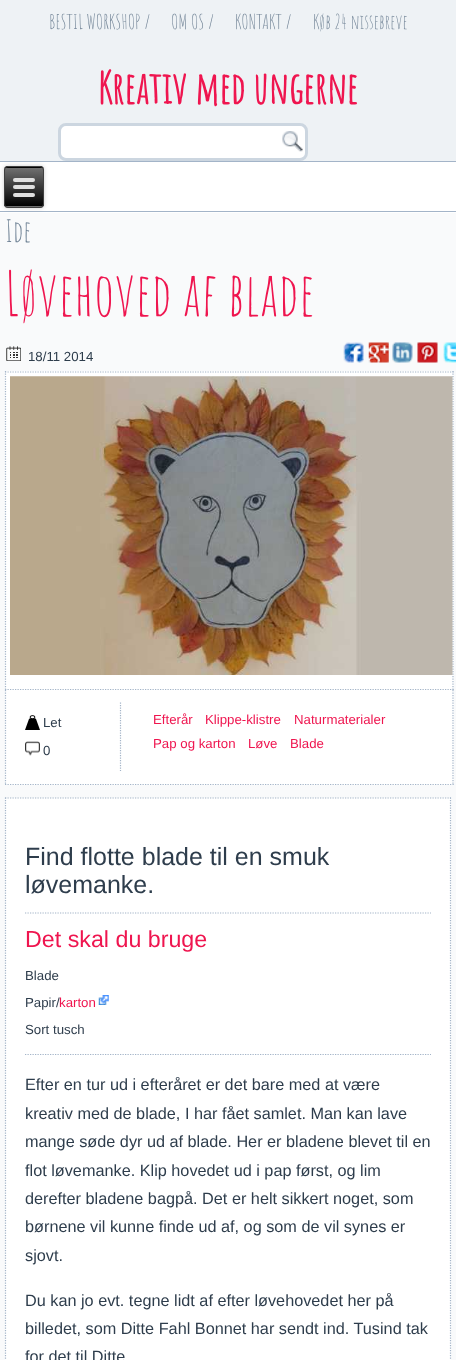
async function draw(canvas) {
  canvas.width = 456;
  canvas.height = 1360;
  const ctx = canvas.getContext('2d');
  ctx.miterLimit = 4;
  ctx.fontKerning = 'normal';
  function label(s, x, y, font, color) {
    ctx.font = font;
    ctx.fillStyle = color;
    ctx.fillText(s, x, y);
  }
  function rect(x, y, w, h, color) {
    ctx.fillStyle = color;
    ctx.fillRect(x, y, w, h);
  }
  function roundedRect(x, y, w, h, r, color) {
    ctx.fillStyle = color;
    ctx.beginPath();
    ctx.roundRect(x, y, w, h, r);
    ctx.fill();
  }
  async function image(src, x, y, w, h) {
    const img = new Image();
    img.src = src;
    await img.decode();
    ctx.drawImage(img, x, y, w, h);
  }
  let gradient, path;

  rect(0, 0, 456, 1360, '#f9fafb');
  rect(0, 0, 456, 161, '#eef2f5');
  label('BESTIL WORKSHOP /', 49, 29, '20px Amatic SC', '#758799');
  label('OM OS /', 171, 29, '20px Amatic SC', '#758799');
  label('KONTAKT /', 235, 29, '20px Amatic SC', '#758799');
  label('Køb 24 nissebreve', 313, 29, '20px Amatic SC', '#758799');
  label('Kreativ med ungerne', 98, 104, 'bold 43.25px Amatic SC', '#ef154f');
  ctx.fillStyle = '#fff';
  ctx.beginPath();
  ctx.roundRect(59.5, 124.5, 247, 35, 6.5);
  ctx.fill();
  ctx.strokeStyle = '#ccd6e0';
  ctx.lineWidth = 3;
  ctx.stroke();
  await image('assets/img1.png', 282, 131, 21, 21);
  rect(0, 162, 456, 51, '#fff');
  rect(0, 161, 456, 1, '#a3b4c8');
  rect(0, 211, 456, 1, '#a3b4c8');
  ctx.fillStyle = '#00000033';
  ctx.filter = 'blur(2px)';
  ctx.beginPath();
  ctx.roundRect(4, 166, 40, 42, 4);
  ctx.fill();
  ctx.filter = 'none';
  ctx.save();
  ctx.beginPath();
  ctx.roundRect(4, 166, 40, 42, 4);
  ctx.clip();
  gradient = ctx.createLinearGradient(24, 129, 24, 168);
  gradient.addColorStop(0, '#707070');
  gradient.addColorStop(1, '#000');
  ctx.fillStyle = gradient;
  ctx.fillRect(4, 166, 40, 2);
  gradient = ctx.createLinearGradient(24, 168, 24, 206);
  gradient.addColorStop(0, '#707070');
  gradient.addColorStop(1, '#000');
  ctx.fillStyle = gradient;
  ctx.fillRect(4, 168, 40, 38);
  gradient = ctx.createLinearGradient(24, 206, 24, 245);
  gradient.addColorStop(0, '#707070');
  gradient.addColorStop(1, '#000');
  ctx.fillStyle = gradient;
  ctx.fillRect(4, 206, 40, 2);
  ctx.restore();
  ctx.beginPath();
  ctx.roundRect(4.5, 166.5, 39, 41, 3.5);
  ctx.strokeStyle = '#404040';
  ctx.lineWidth = 1;
  ctx.stroke();
  roundedRect(13, 178, 22, 4, 2, '#e0e0e0');
  roundedRect(13, 185, 22, 4, 2, '#e0e0e0');
  roundedRect(13, 193, 22, 4, 2, '#e0e0e0');
  label('Ide', 5, 242, '30px Amatic SC', '#6f8295');
  label('Løvehoved af blade', 5, 316, '60px Amatic SC', '#ef154f');
  await image('assets/img2.png', 6, 346, 15, 15);
  label('18/11 2014', 28, 361, '13.25px Liberation Sans', '#2e3d4c');
  await image('assets/img3.png', 343, 342, 21, 21);
  await image('assets/img4.png', 368, 342, 21, 21);
  await image('assets/img5.png', 392, 342, 21, 21);
  await image('assets/img6.png', 417, 342, 21, 21);
  await image('assets/img7.png', 443, 342, 13, 21);
  rect(5, 371, 449, 414, '#fff');
  path = new Path2D('M5 372H454');
  ctx.strokeStyle = '#a3b4c8';
  ctx.lineWidth = 1.2;
  ctx.setLineDash([1.25, 1.25]);
  ctx.stroke(path);
  path = new Path2D('M453 371V690');
  ctx.stroke(path);
  path = new Path2D('M453 690V785');
  ctx.stroke(path);
  path = new Path2D('M5 784.5H454');
  ctx.stroke(path);
  path = new Path2D('M5.5 690V785');
  ctx.stroke(path);
  path = new Path2D('M5 689.5H454');
  ctx.stroke(path);
  path = new Path2D('M5.5 371V690');
  ctx.stroke(path);
  await image('assets/img8.png', 10, 376, 443, 299);
  path = new Path2D('M120.5 702.5V771');
  ctx.stroke(path);
  await image('assets/img9.png', 25, 715, 15, 15);
  label('Let', 43, 727, '13.25px Liberation Sans', '#2e3d4c');
  await image('assets/img10.png', 25, 741, 15, 15);
  label('0', 43, 755, '13.25px Liberation Sans', '#2e3d4c');
  label('Efterår', 153, 724, '13.25px Liberation Sans', '#ef154f');
  label('Naturmaterialer', 294, 724, '13.25px Liberation Sans', '#ef154f');
  label('Pap og karton', 153, 748, '13.25px Liberation Sans', '#ef154f');
  label('Klippe-klistre', 205, 724, '13.25px Liberation Sans', '#ef154f');
  label('Løve', 248, 748, '13.25px Liberation Sans', '#ef154f');
  label('Blade', 290, 748, '13.25px Liberation Sans', '#ef154f');
  rect(5, 798, 446, 562, '#fff');
  path = new Path2D('M5 798H451');
  ctx.stroke(path);
  path = new Path2D('M450.5 797.5V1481');
  ctx.stroke(path);
  path = new Path2D('M5.5 797.5V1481');
  ctx.stroke(path);
  label('Find flotte blade til en smuk', 25, 865, '25px Liberation Sans', '#2e3d4c');
  label('løvemanke.', 25, 893, '25px Liberation Sans', '#2e3d4c');
  path = new Path2D('M25 913H431');
  ctx.stroke(path);
  path = new Path2D('M25 1054.5H431');
  ctx.stroke(path);
  label('Det skal du bruge', 25, 947, '23.25px Liberation Sans', '#ef154f');
  label('Blade', 25, 980, '13.25px Liberation Sans', '#2e3d4c');
  label('Papir/', 25, 1007, '13.25px Liberation Sans', '#2e3d4c');
  label('karton', 59, 1007, '13.25px Liberation Sans', '#ef154f');
  await image('assets/img11.png', 98, 995, 11, 10);
  label('Sort tusch', 25, 1034, '13.25px Liberation Sans', '#2e3d4c');
  label('Efter en tur ud i efteråret er det bare med at være', 25, 1090, '16.25px Liberation Sans', '#2e3d4c');
  label('kreativ med de blade, I har fået samlet. Man kan lave', 25, 1119, '16.25px Liberation Sans', '#2e3d4c');
  label('mange søde dyr ud af blade. Her er bladene blevet til en', 25, 1147, '16.25px Liberation Sans', '#2e3d4c');
  label('flot løvemanke. Klip hovedet ud i pap først, og lim', 25, 1176, '16.25px Liberation Sans', '#2e3d4c');
  label('derefter bladene bagpå. Det er helt sikkert noget, som', 25, 1204, '16.25px Liberation Sans', '#2e3d4c');
  label('børnene vil kunne finde ud af, og som de vil synes er', 25, 1232, '16.25px Liberation Sans', '#2e3d4c');
  label('sjovt.', 25, 1261, '16.25px Liberation Sans', '#2e3d4c');
  label('Du kan jo evt. tegne lidt af efter løvehovedet her på', 25, 1306, '16.25px Liberation Sans', '#2e3d4c');
  label('billedet, som Ditte Fahl Bonnet har sendt ind. Tusind tak', 25, 1334, '16.25px Liberation Sans', '#2e3d4c');
  label('for det til Ditte', 25, 1362, '16.25px Liberation Sans', '#2e3d4c');
}

draw(document.querySelector('canvas'));
